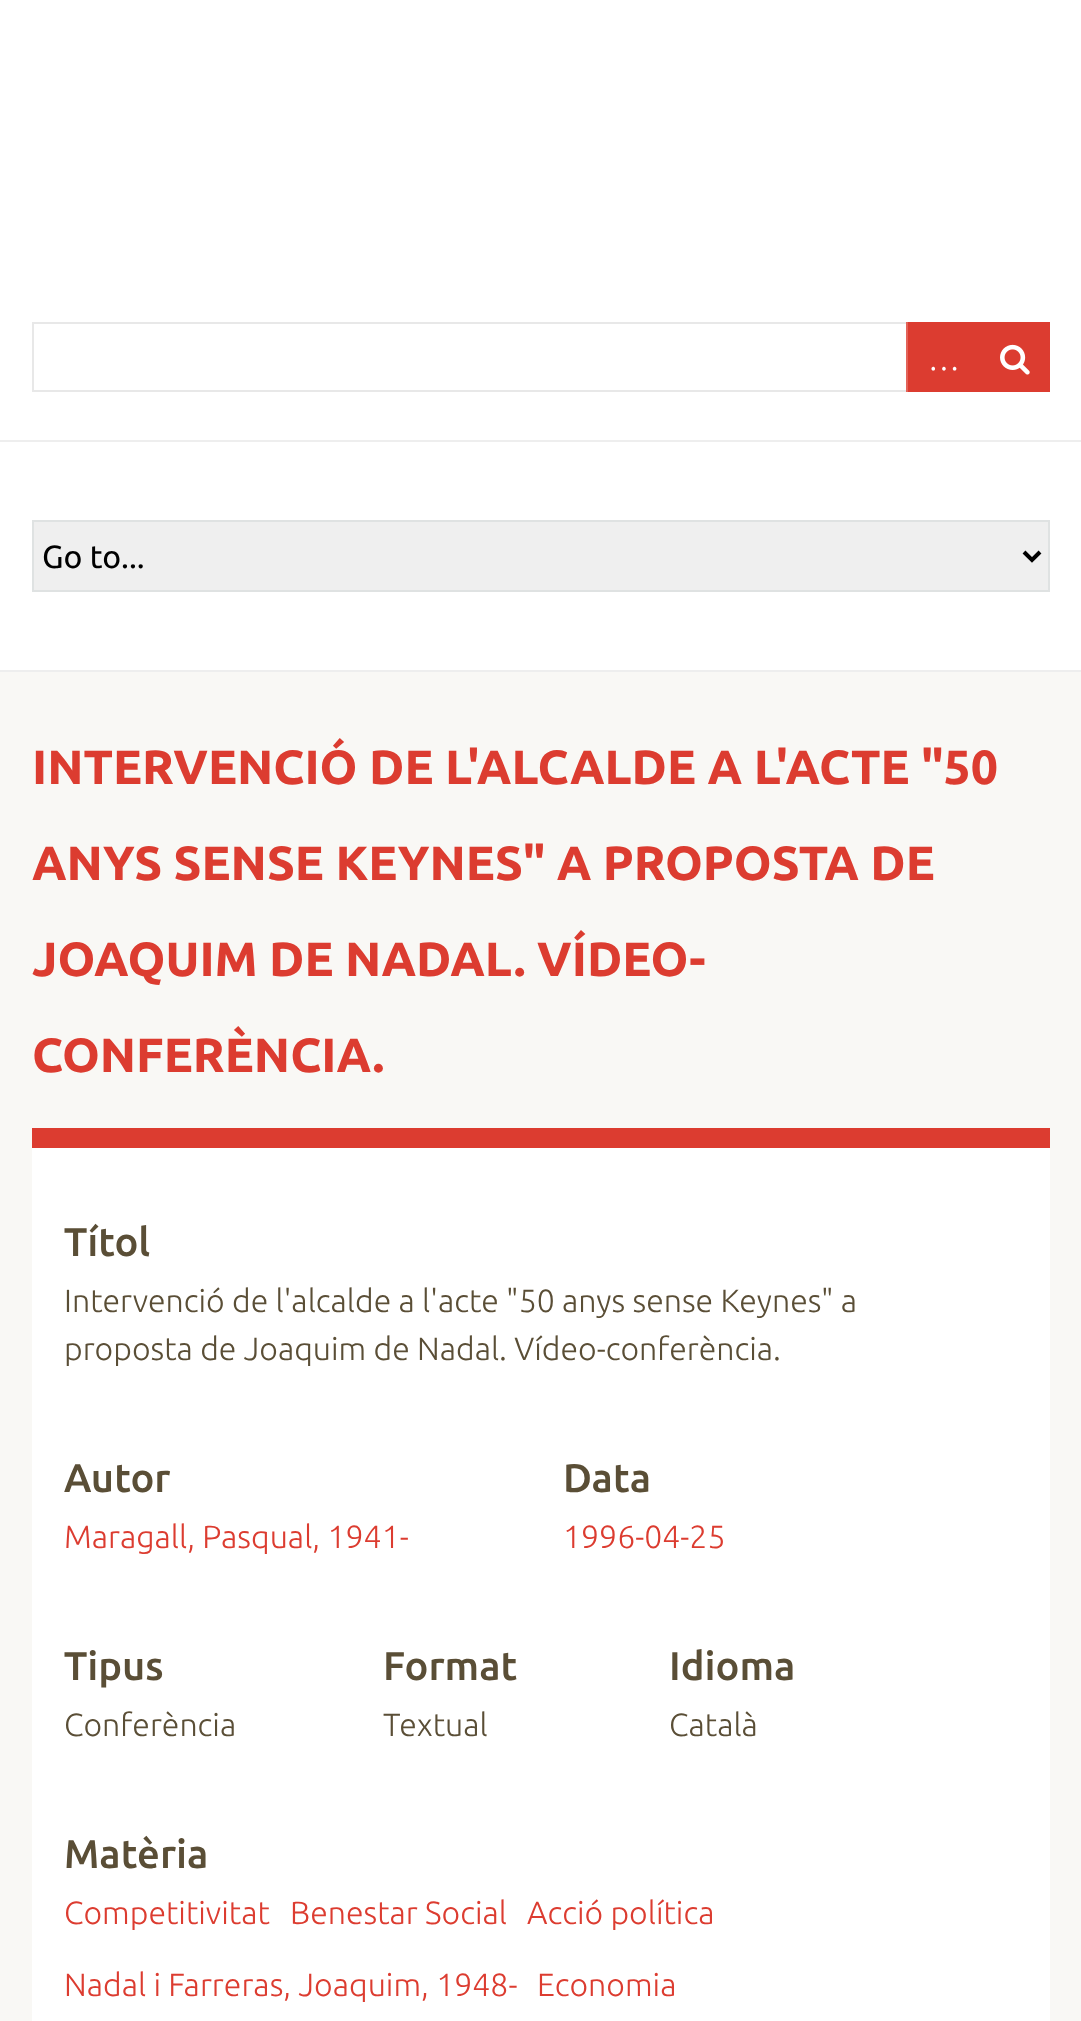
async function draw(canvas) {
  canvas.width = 1081;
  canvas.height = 2021;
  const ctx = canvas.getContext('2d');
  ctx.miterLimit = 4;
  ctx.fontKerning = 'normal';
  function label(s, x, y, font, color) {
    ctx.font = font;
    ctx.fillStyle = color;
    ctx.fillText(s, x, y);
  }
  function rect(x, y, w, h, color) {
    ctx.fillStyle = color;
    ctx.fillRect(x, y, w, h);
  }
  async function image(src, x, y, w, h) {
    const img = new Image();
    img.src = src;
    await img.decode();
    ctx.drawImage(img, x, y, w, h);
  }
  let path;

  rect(0, 0, 1081, 2021, '#fff');
  ctx.strokeStyle = '#e8e8e8';
  ctx.lineWidth = 2;
  ctx.strokeRect(33, 323, 1016, 68);
  rect(906, 322, 144, 70, '#dc3c30');
  rect(906, 322, 2, 72, '#ffffff33');
  label('…', 928, 370, '300 32px Ubuntu', '#fff');
  await image('assets/img1.png', 1000, 344, 30, 31);
  rect(0, 440, 1081, 2, '#eee');
  rect(0, 670, 1081, 2, '#eee');
  ctx.fillStyle = '#efefef';
  ctx.beginPath();
  ctx.rect(33, 521, 1016, 70);
  ctx.fill();
  ctx.strokeStyle = '#dfe2e2';
  ctx.stroke();
  path = new Path2D('M1024 552L1032 560L1040 552');
  ctx.strokeStyle = '#000';
  ctx.lineWidth = 4;
  ctx.stroke(path);
  label('Go to...', 42, 568, '32px Ubuntu', '#000');
  rect(0, 672, 1081, 1349, '#f9f8f5');
  label('INTERVENCIÓ DE L\'ALCALDE A L\'ACTE "50', 32, 784, 'bold 48px Ubuntu', '#dc3c30');
  label('ANYS SENSE KEYNES" A PROPOSTA DE', 32, 880, 'bold 48px Ubuntu', '#dc3c30');
  label('JOAQUIM DE NADAL. VÍDEO-', 32, 976, 'bold 48px Ubuntu', '#dc3c30');
  label('CONFERÈNCIA.', 32, 1072, 'bold 48px Ubuntu', '#dc3c30');
  rect(32, 1148, 1018, 873, '#fff');
  rect(32, 1128, 1018, 20, '#dc3c30');
  label('Títol', 64, 1256, '500 40px Ubuntu', '#5a4e36');
  label('Intervenció de l\'alcalde a l\'acte "50 anys sense Keynes" a', 64, 1312, '300 32px Ubuntu', '#5a4e36');
  label('proposta de Joaquim de Nadal. Vídeo-conferència.', 64, 1360, '300 32px Ubuntu', '#5a4e36');
  label('Autor', 64, 1492, '500 40px Ubuntu', '#5a4e36');
  label('Maragall, Pasqual, 1941-', 64, 1548, '300 32px Ubuntu', '#dc3c30');
  label('Data', 563, 1492, '500 40px Ubuntu', '#5a4e36');
  label('1996-04-25', 563, 1548, '300 32px Ubuntu', '#dc3c30');
  label('Tipus', 64, 1680, '500 40px Ubuntu', '#5a4e36');
  label('Conferència', 64, 1736, '300 32px Ubuntu', '#5a4e36');
  label('Format', 383, 1680, '500 40px Ubuntu', '#5a4e36');
  label('Textual', 383, 1736, '300 32px Ubuntu', '#5a4e36');
  label('Idioma', 669, 1680, '500 40px Ubuntu', '#5a4e36');
  label('Català', 669, 1736, '300 32px Ubuntu', '#5a4e36');
  label('Matèria', 64, 1868, '500 40px Ubuntu', '#5a4e36');
  label('Competitivitat', 64, 1924, '300 32px Ubuntu', '#dc3c30');
  label('Benestar Social', 290, 1924, '300 32px Ubuntu', '#dc3c30');
  label('Acció política', 527, 1924, '300 32px Ubuntu', '#dc3c30');
  label('Nadal i Farreras, Joaquim, 1948-', 64, 1996, '300 32px Ubuntu', '#dc3c30');
  label('Economia', 537, 1996, '300 32px Ubuntu', '#dc3c30');
}

draw(document.querySelector('canvas'));
